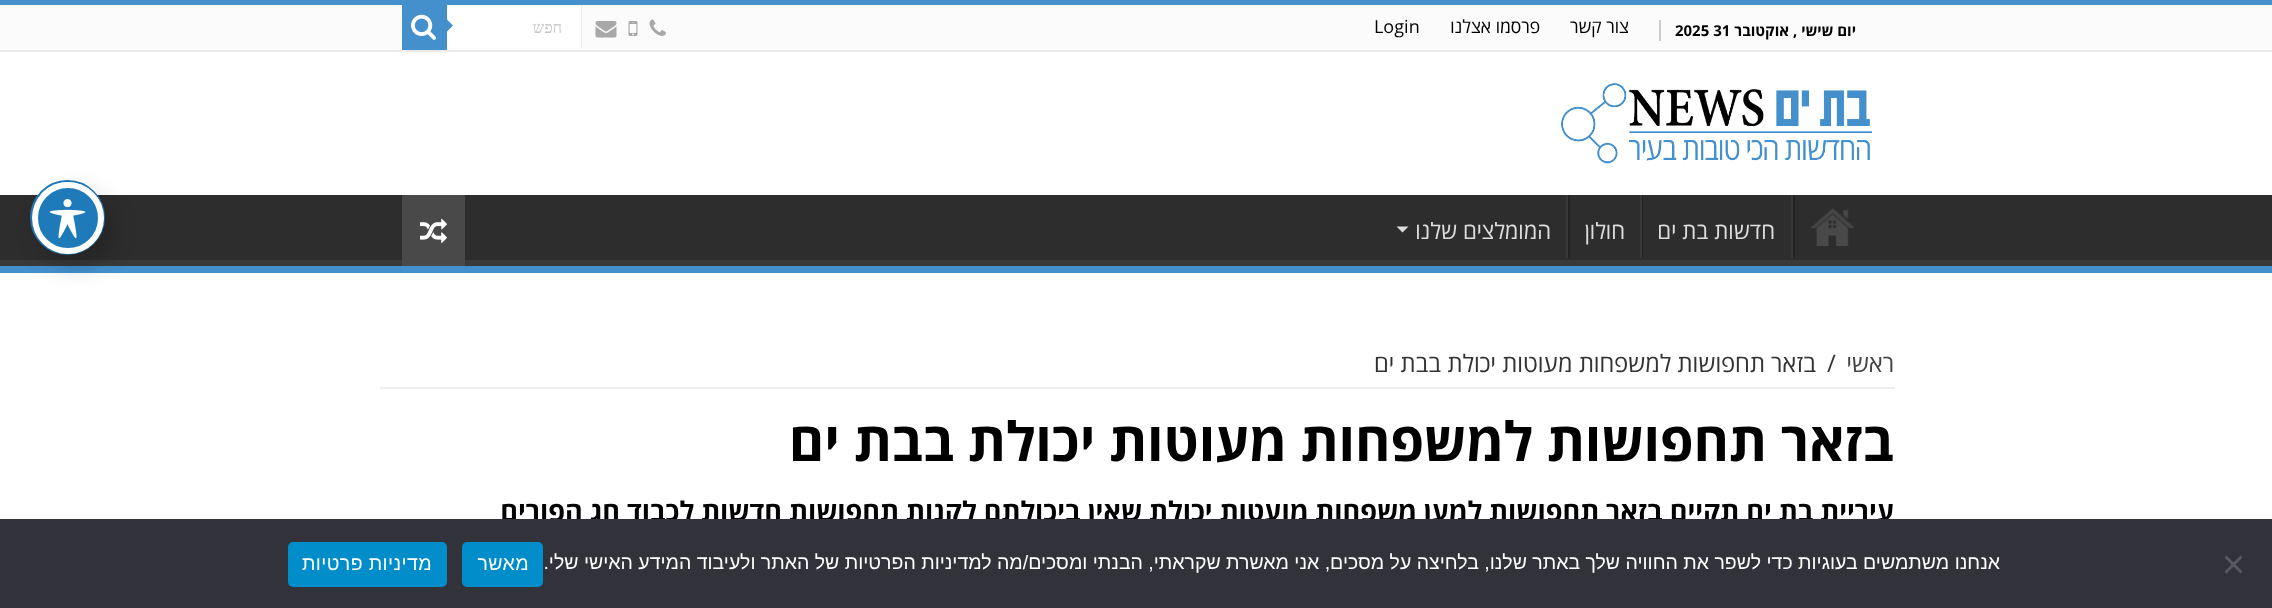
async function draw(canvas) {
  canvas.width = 2272;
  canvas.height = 608;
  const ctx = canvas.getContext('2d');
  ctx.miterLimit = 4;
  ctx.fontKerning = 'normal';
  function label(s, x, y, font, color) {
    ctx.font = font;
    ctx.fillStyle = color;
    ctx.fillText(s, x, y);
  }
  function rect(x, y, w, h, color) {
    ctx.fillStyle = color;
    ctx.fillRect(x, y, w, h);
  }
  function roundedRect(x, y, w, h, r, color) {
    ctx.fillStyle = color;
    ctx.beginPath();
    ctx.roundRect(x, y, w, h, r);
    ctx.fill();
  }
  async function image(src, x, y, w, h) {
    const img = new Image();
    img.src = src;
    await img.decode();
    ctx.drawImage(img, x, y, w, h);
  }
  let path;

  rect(0, 0, 2272, 608, '#fff');
  rect(0, 0, 2272, 5, '#4490cd');
  rect(0, 5, 2272, 45, '#fbfbfb');
  rect(0, 50, 2272, 2, '#ececec');
  rect(1659, 20, 2, 21, '#ccc');
  ctx.direction = 'rtl';
  label('יום שישי , אוקטובר', 1856, 36, 'bold 15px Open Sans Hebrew', '#000');
  ctx.direction = 'ltr';
  label('2025 31', 1675, 36, 'bold 15px Open Sans Hebrew', '#000');
  ctx.direction = 'rtl';
  label('צור קשר', 1629, 33, '18px Open Sans Hebrew', '#000');
  label('פרסמו אצלנו', 1540, 33, '18px Open Sans Hebrew', '#000');
  ctx.direction = 'ltr';
  label('Login', 1374, 33, '18px Open Sans Hebrew', '#000');
  await image('assets/img1.png', 649, 19, 17, 17);
  await image('assets/img2.png', 628, 21, 10, 15);
  await image('assets/img3.png', 595, 21, 22, 17);
  rect(447, 5, 134, 43, '#fff');
  rect(581, 5, 1, 43, '#ececec');
  ctx.direction = 'rtl';
  label('חפש', 562, 33, '16px Liberation Serif', '#c5c5c5');
  rect(402, 5, 45, 45, '#4490cd');
  await image('assets/img4.png', 411, 14, 25, 26);
  path = new Path2D('M447 31.5V19.5L453 25.5Z');
  ctx.fill(path);
  await image('assets/img5.png', 1561, 83, 311, 81);
  rect(0, 195, 2272, 65, '#2d2d2d');
  ctx.save();
  ctx.beginPath();
  ctx.rect(0, 195, 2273, 71);
  ctx.clip();
  ctx.fillStyle = '#393939';
  path = new Path2D('M-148 46H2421V414H-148ZM-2 186H2271C2272 186 2272 187 2272 188V258C2272 259 2272 260 2271 260H-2C-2 260-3 259-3 258V188C-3 187-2 186-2 186Z');
  ctx.fill(path, 'evenodd');
  ctx.restore();
  rect(0, 266, 2272, 7, '#4490cd');
  await image('assets/img6.png', 1810, 208, 45, 38);
  rect(1793, 195, 2, 63, '#222');
  rect(1791, 195, 2, 63, '#383838');
  label('חדשות בת ים', 1775, 239, '22.5px Open Sans Hebrew', '#ddd');
  rect(1642, 195, 1, 63, '#222');
  rect(1640, 195, 2, 63, '#383838');
  label('חולון', 1625, 239, '22.5px Open Sans Hebrew', '#ddd');
  rect(1568, 195, 2, 63, '#222');
  rect(1566, 195, 2, 63, '#383838');
  label('המומלצים שלנו', 1551, 239, '22.5px Open Sans Hebrew', '#ddd');
  path = new Path2D('M1396.5 226.5H1408.5L1402.5 232.5Z');
  ctx.fill(path);
  rect(402, 195, 63, 71, '#494949');
  await image('assets/img7.png', 420, 218, 27, 25);
  rect(380, 387, 1515, 2, '#eee');
  label('ראשי', 1894, 372, '24px Open Sans Hebrew', '#444');
  ctx.direction = 'ltr';
  label('/', 1827, 372, '24px Open Sans Hebrew', '#333');
  ctx.direction = 'rtl';
  label('בזאר תחפושות למשפחות מעוטות יכולת בבת ים', 1816, 372, '24px Open Sans Hebrew', '#333');
  label('בזאר תחפושות למשפחות מעוטות יכולת בבת ים', 1894, 461, 'bold 54px Open Sans Hebrew', '#000');
  label('עיריית בת ים תקיים בזאר תחפושות למען משפחות מועטות יכולת שאין ביכולתם לקנות תחפושות חדשות לכבוד חג הפורים', 1894, 521, 'bold 27px Open Sans Hebrew', '#000');
  ctx.beginPath();
  ctx.arc(67.5, 217.5, 36.5, 0, 2 * Math.PI);
  ctx.strokeStyle = '#1e7ab9';
  ctx.lineWidth = 2;
  ctx.stroke();
  ctx.fillStyle = '#00000033';
  ctx.filter = 'blur(12px)';
  ctx.beginPath();
  ctx.roundRect(41, 194, 72, 72, 36);
  ctx.fill();
  ctx.filter = 'none';
  ctx.fillStyle = '#1e7ab9';
  ctx.beginPath();
  ctx.arc(68, 218, 33, 0, 2 * Math.PI);
  ctx.fill();
  ctx.strokeStyle = '#fff';
  ctx.lineWidth = 6;
  ctx.stroke();
  await image('assets/img8.png', 49, 199, 37, 40);
  rect(0, 519, 2272, 89, '#32323a');
  ctx.fillStyle = '#59595d';
  path = new Path2D('M2240.5 555.5L2242.5 557.5L2226.5 573.5L2224.5 571.5Z');
  ctx.fill(path);
  path = new Path2D('M2224.5 557.5L2226.5 555.5L2242.5 571.5L2240.5 573.5Z');
  ctx.fill(path);
  label('אנחנו משתמשים בעוגיות כדי לשפר את החוויה שלך באתר שלנו, בלחיצה על מסכים, אני מאשרת שקראתי, הבנתי ומסכים/מה למדיניות הפרטיות של האתר ולעיבוד המידע האישי שלי.', 2000, 569, '19.5px Liberation Sans', '#fff');
  roundedRect(462, 542, 81, 45, 5, '#008dc9');
  ctx.letterSpacing = '0.4px';
  label('מאשר', 529, 570, '19.5px Liberation Sans', '#fff');
  roundedRect(288, 542, 159, 45, 5, '#008dc9');
  label('מדיניות פרטיות', 432, 570, '19.5px Liberation Sans', '#fff');
}

draw(document.querySelector('canvas'));
